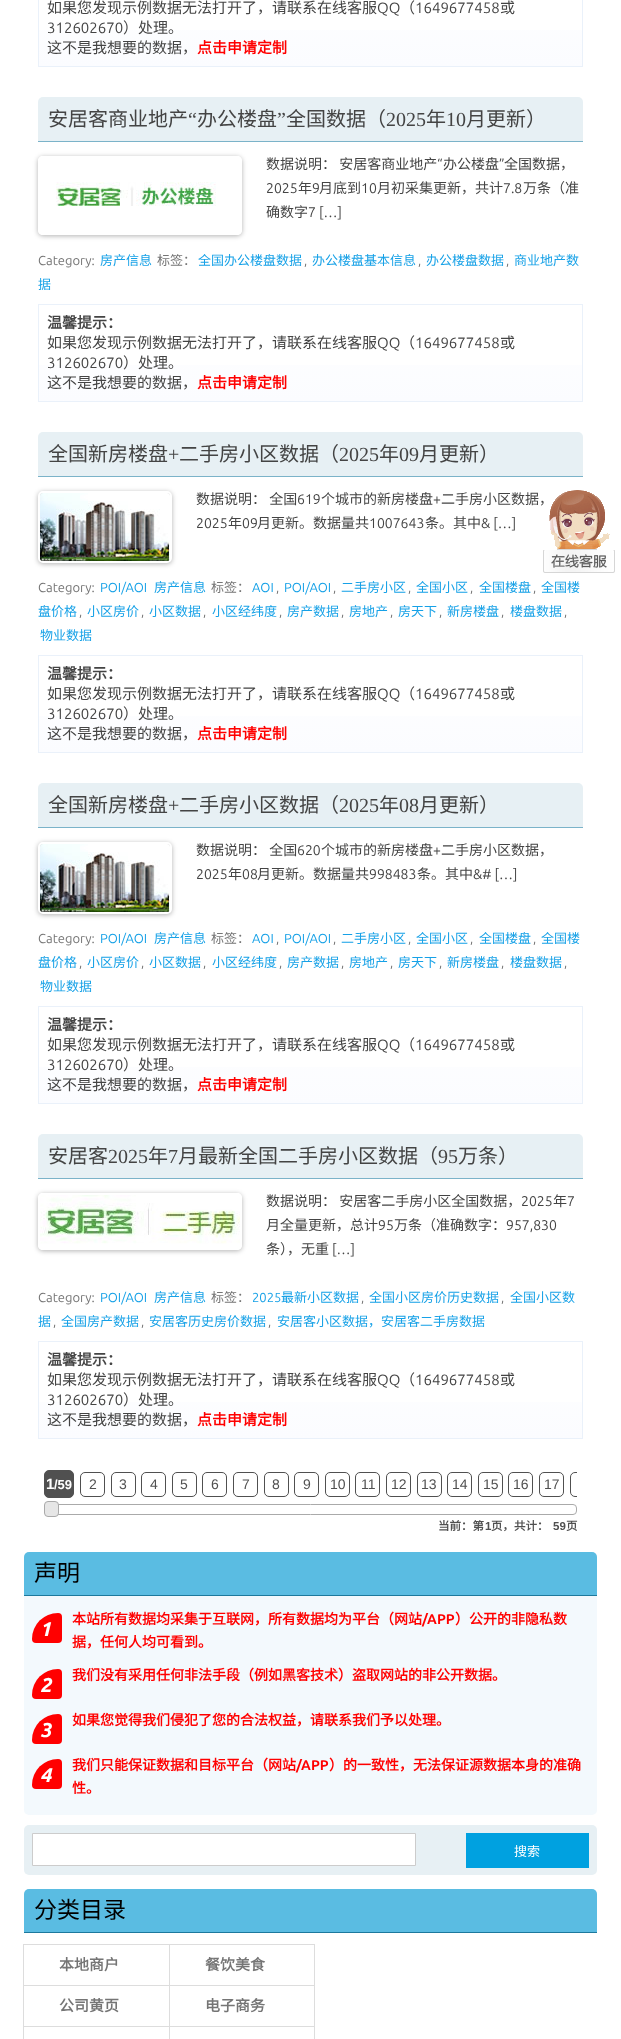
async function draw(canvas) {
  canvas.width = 621;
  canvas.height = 2039;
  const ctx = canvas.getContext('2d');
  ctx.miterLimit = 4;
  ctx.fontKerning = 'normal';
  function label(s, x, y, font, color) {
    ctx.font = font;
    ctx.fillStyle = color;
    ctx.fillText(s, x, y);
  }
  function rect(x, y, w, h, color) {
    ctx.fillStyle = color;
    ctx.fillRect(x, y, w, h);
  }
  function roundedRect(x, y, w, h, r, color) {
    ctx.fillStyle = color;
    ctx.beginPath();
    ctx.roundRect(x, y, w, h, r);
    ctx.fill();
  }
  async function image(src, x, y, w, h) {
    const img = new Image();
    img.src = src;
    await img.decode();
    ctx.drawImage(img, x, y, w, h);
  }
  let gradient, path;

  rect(0, 0, 621, 2039, '#fff');
  gradient = ctx.createLinearGradient(311, -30, 311, 66);
  gradient.addColorStop(0, '#fff');
  gradient.addColorStop(1, '#fbfcff');
  ctx.fillStyle = gradient;
  ctx.fillRect(39, 30, 543, 36);
  ctx.strokeStyle = '#eaf1fa';
  ctx.strokeRect(38.5, -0.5, 544, 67);
  label('如果您发现示例数据无法打开了，请联系在线客服', 47, 13, '15px Noto Sans CJK SC', '#444');
  label('QQ', 377, 13, '15px Ubuntu', '#444');
  label('（', 400, 13, '15px Noto Sans CJK SC', '#444');
  label('1649677458', 415, 13, '15px Ubuntu', '#444');
  label('或', 500, 13, '15px Noto Sans CJK SC', '#444');
  label('312602670', 47, 33, '15px Ubuntu', '#444');
  label('）处理。', 123, 33, '15px Noto Sans CJK SC', '#444');
  label('这不是我想要的数据，', 47, 53, '15px Noto Sans CJK SC', '#444');
  label('点击申请定制', 197, 53, 'bold 15px Noto Sans CJK SC', '#f00');
  ctx.fillStyle = '#e7f0f4';
  ctx.beginPath();
  ctx.roundRect(38, 97, 545, 45, [5, 5, 0, 0]);
  ctx.fill();
  rect(38, 141, 545, 1, '#7bb3c9');
  label('安居客商业地产', 48, 126, '20px Noto Sans CJK SC', '#444');
  label('“', 188, 126, '20px Liberation Serif', '#444');
  label('办公楼盘', 197, 126, '20px Noto Sans CJK SC', '#444');
  label('”', 277, 126, '20px Liberation Serif', '#444');
  label('全国数据（', 286, 126, '20px Noto Sans CJK SC', '#444');
  label('2025', 386, 126, '20px Liberation Serif', '#444');
  label('年', 426, 126, '20px Noto Sans CJK SC', '#444');
  label('10', 446, 126, '20px Liberation Serif', '#444');
  label('月更新）', 466, 126, '20px Noto Sans CJK SC', '#444');
  ctx.save();
  path = new Path2D('M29 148H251V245H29ZM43 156H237C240 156 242 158 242 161V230C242 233 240 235 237 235H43C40 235 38 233 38 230V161C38 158 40 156 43 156Z');
  ctx.clip(path, 'evenodd');
  ctx.fillStyle = '#0000004d';
  ctx.filter = 'blur(2.5px)';
  ctx.beginPath();
  ctx.roundRect(38, 157, 204, 79, 5);
  ctx.fill();
  ctx.filter = 'none';
  ctx.restore();
  ctx.beginPath();
  ctx.roundRect(39, 157, 202, 77, 4);
  ctx.strokeStyle = '#fff';
  ctx.lineWidth = 2;
  ctx.stroke();
  await image('assets/img1.png', 56, 182, 160, 24);
  label('数据说明： 安居客商业地产', 266, 169, '14px Noto Sans CJK SC', '#444');
  label('“', 437, 169, '14px Ubuntu', '#444');
  label('办公楼盘', 443, 169, '14px Noto Sans CJK SC', '#444');
  label('”', 499, 169, '14px Ubuntu', '#444');
  label('全国数据，', 504, 169, '14px Noto Sans CJK SC', '#444');
  label('2025', 266, 193, '14px Ubuntu', '#444');
  label('年', 298, 193, '14px Noto Sans CJK SC', '#444');
  label('9', 312, 193, '14px Ubuntu', '#444');
  label('月底到', 319, 193, '14px Noto Sans CJK SC', '#444');
  label('10', 361, 193, '14px Ubuntu', '#444');
  label('月初采集更新，共计', 377, 193, '14px Noto Sans CJK SC', '#444');
  label('7.8', 503, 193, '14px Ubuntu', '#444');
  label('万条（准', 523, 193, '14px Noto Sans CJK SC', '#444');
  label('确数字', 266, 217, '14px Noto Sans CJK SC', '#444');
  label('7 […]', 308, 217, '14px Ubuntu', '#444');
  label('Category:', 38, 265, '13px Ubuntu', '#757575');
  label('房产信息', 100, 265, '13px Noto Sans CJK SC', '#16a1e7');
  label('标签：', 157, 265, '13px Noto Sans CJK SC', '#757575');
  label('全国办公楼盘数据', 198, 265, '13px Noto Sans CJK SC', '#16a1e7');
  label(',', 304, 265, '13px Ubuntu', '#757575');
  label('办公楼盘基本信息', 312, 265, '13px Noto Sans CJK SC', '#16a1e7');
  label(',', 418, 265, '13px Ubuntu', '#757575');
  label('办公楼盘数据', 426, 265, '13px Noto Sans CJK SC', '#16a1e7');
  label(',', 506, 265, '13px Ubuntu', '#757575');
  label('商业地产数', 514, 265, '13px Noto Sans CJK SC', '#16a1e7');
  label('据', 38, 289, '13px Noto Sans CJK SC', '#16a1e7');
  gradient = ctx.createLinearGradient(311, 305, 311, 401);
  gradient.addColorStop(0, '#fff');
  gradient.addColorStop(1, '#fbfcff');
  ctx.fillStyle = gradient;
  ctx.fillRect(39, 365, 543, 36);
  ctx.strokeStyle = '#eaf1fa';
  ctx.lineWidth = 1;
  ctx.strokeRect(38.5, 304.5, 544, 97);
  label('温馨提示：', 47, 328, 'bold 15px Noto Sans CJK SC', '#444');
  label('如果您发现示例数据无法打开了，请联系在线客服', 47, 348, '15px Noto Sans CJK SC', '#444');
  label('QQ', 377, 348, '15px Ubuntu', '#444');
  label('（', 400, 348, '15px Noto Sans CJK SC', '#444');
  label('1649677458', 415, 348, '15px Ubuntu', '#444');
  label('或', 500, 348, '15px Noto Sans CJK SC', '#444');
  label('312602670', 47, 368, '15px Ubuntu', '#444');
  label('）处理。', 123, 368, '15px Noto Sans CJK SC', '#444');
  label('这不是我想要的数据，', 47, 388, '15px Noto Sans CJK SC', '#444');
  label('点击申请定制', 197, 388, 'bold 15px Noto Sans CJK SC', '#f00');
  ctx.fillStyle = '#e7f0f4';
  ctx.beginPath();
  ctx.roundRect(38, 432, 545, 45, [5, 5, 0, 0]);
  ctx.fill();
  rect(38, 476, 545, 1, '#7bb3c9');
  label('全国新房楼盘', 48, 461, '20px Noto Sans CJK SC', '#444');
  label('+', 168, 461, '20px Liberation Serif', '#444');
  label('二手房小区数据（', 179, 461, '20px Noto Sans CJK SC', '#444');
  label('2025', 339, 461, '20px Liberation Serif', '#444');
  label('年', 379, 461, '20px Noto Sans CJK SC', '#444');
  label('09', 399, 461, '20px Liberation Serif', '#444');
  label('月更新）', 419, 461, '20px Noto Sans CJK SC', '#444');
  ctx.fillStyle = '#0000004d';
  ctx.filter = 'blur(2.5px)';
  ctx.beginPath();
  ctx.roundRect(38, 492, 134, 72, 5);
  ctx.fill();
  ctx.filter = 'none';
  ctx.beginPath();
  ctx.roundRect(39, 492, 132, 70, 4);
  ctx.strokeStyle = '#fff';
  ctx.lineWidth = 2;
  ctx.stroke();
  await image('assets/img2.png', 40, 493, 130, 68);
  label('数据说明： 全国', 196, 504, '14px Noto Sans CJK SC', '#444');
  label('619', 297, 504, '14px Ubuntu', '#444');
  label('个城市的新房楼盘', 321, 504, '14px Noto Sans CJK SC', '#444');
  label('+', 433, 504, '14px Ubuntu', '#444');
  label('二手房小区数据，', 441, 504, '14px Noto Sans CJK SC', '#444');
  label('2025', 196, 528, '14px Ubuntu', '#444');
  label('年', 228, 528, '14px Noto Sans CJK SC', '#444');
  label('09', 242, 528, '14px Ubuntu', '#444');
  label('月更新。数据量共', 257, 528, '14px Noto Sans CJK SC', '#444');
  label('1007643', 369, 528, '14px Ubuntu', '#444');
  label('条。其中', 425, 528, '14px Noto Sans CJK SC', '#444');
  label('& […]', 481, 528, '14px Ubuntu', '#444');
  label('Category:', 38, 592, '13px Ubuntu', '#757575');
  label('POI/AOI', 100, 592, '13px Ubuntu', '#16a1e7');
  label('房产信息', 154, 592, '13px Noto Sans CJK SC', '#16a1e7');
  label('标签：', 211, 592, '13px Noto Sans CJK SC', '#757575');
  label('AOI', 252, 592, '13px Ubuntu', '#16a1e7');
  label(',', 276, 592, '13px Ubuntu', '#757575');
  label('POI/AOI', 284, 592, '13px Ubuntu', '#16a1e7');
  label(',', 333, 592, '13px Ubuntu', '#757575');
  label('二手房小区', 341, 592, '13px Noto Sans CJK SC', '#16a1e7');
  label(',', 408, 592, '13px Ubuntu', '#757575');
  label('全国小区', 416, 592, '13px Noto Sans CJK SC', '#16a1e7');
  label(',', 470, 592, '13px Ubuntu', '#757575');
  label('全国楼盘', 479, 592, '13px Noto Sans CJK SC', '#16a1e7');
  label(',', 533, 592, '13px Ubuntu', '#757575');
  label('全国楼', 541, 592, '13px Noto Sans CJK SC', '#16a1e7');
  label('盘价格', 38, 616, '13px Noto Sans CJK SC', '#16a1e7');
  label(',', 79, 616, '13px Ubuntu', '#757575');
  label('小区房价', 87, 616, '13px Noto Sans CJK SC', '#16a1e7');
  label(',', 141, 616, '13px Ubuntu', '#757575');
  label('小区数据', 149, 616, '13px Noto Sans CJK SC', '#16a1e7');
  label(',', 203, 616, '13px Ubuntu', '#757575');
  label('小区经纬度', 212, 616, '13px Noto Sans CJK SC', '#16a1e7');
  label(',', 279, 616, '13px Ubuntu', '#757575');
  label('房产数据', 287, 616, '13px Noto Sans CJK SC', '#16a1e7');
  label(',', 341, 616, '13px Ubuntu', '#757575');
  label('房地产', 349, 616, '13px Noto Sans CJK SC', '#16a1e7');
  label(',', 390, 616, '13px Ubuntu', '#757575');
  label('房天下', 398, 616, '13px Noto Sans CJK SC', '#16a1e7');
  label(',', 439, 616, '13px Ubuntu', '#757575');
  label('新房楼盘', 447, 616, '13px Noto Sans CJK SC', '#16a1e7');
  label(',', 501, 616, '13px Ubuntu', '#757575');
  label('楼盘数据', 510, 616, '13px Noto Sans CJK SC', '#16a1e7');
  label(',', 564, 616, '13px Ubuntu', '#757575');
  label('物业数据', 40, 640, '13px Noto Sans CJK SC', '#16a1e7');
  gradient = ctx.createLinearGradient(311, 656, 311, 752);
  gradient.addColorStop(0, '#fff');
  gradient.addColorStop(1, '#fbfcff');
  ctx.fillStyle = gradient;
  ctx.fillRect(39, 716, 543, 36);
  ctx.strokeStyle = '#eaf1fa';
  ctx.lineWidth = 1;
  ctx.strokeRect(38.5, 655.5, 544, 97);
  label('温馨提示：', 47, 679, 'bold 15px Noto Sans CJK SC', '#444');
  label('如果您发现示例数据无法打开了，请联系在线客服', 47, 699, '15px Noto Sans CJK SC', '#444');
  label('QQ', 377, 699, '15px Ubuntu', '#444');
  label('（', 400, 699, '15px Noto Sans CJK SC', '#444');
  label('1649677458', 415, 699, '15px Ubuntu', '#444');
  label('或', 500, 699, '15px Noto Sans CJK SC', '#444');
  label('312602670', 47, 719, '15px Ubuntu', '#444');
  label('）处理。', 123, 719, '15px Noto Sans CJK SC', '#444');
  label('这不是我想要的数据，', 47, 739, '15px Noto Sans CJK SC', '#444');
  label('点击申请定制', 197, 739, 'bold 15px Noto Sans CJK SC', '#f00');
  ctx.fillStyle = '#e7f0f4';
  ctx.beginPath();
  ctx.roundRect(38, 783, 545, 45, [5, 5, 0, 0]);
  ctx.fill();
  rect(38, 827, 545, 1, '#7bb3c9');
  label('全国新房楼盘', 48, 812, '20px Noto Sans CJK SC', '#444');
  label('+', 168, 812, '20px Liberation Serif', '#444');
  label('二手房小区数据（', 179, 812, '20px Noto Sans CJK SC', '#444');
  label('2025', 339, 812, '20px Liberation Serif', '#444');
  label('年', 379, 812, '20px Noto Sans CJK SC', '#444');
  label('08', 399, 812, '20px Liberation Serif', '#444');
  label('月更新）', 419, 812, '20px Noto Sans CJK SC', '#444');
  ctx.fillStyle = '#0000004d';
  ctx.filter = 'blur(2.5px)';
  ctx.beginPath();
  ctx.roundRect(38, 843, 134, 72, 5);
  ctx.fill();
  ctx.filter = 'none';
  ctx.beginPath();
  ctx.roundRect(39, 843, 132, 70, 4);
  ctx.strokeStyle = '#fff';
  ctx.lineWidth = 2;
  ctx.stroke();
  await image('assets/img2.png', 40, 844, 130, 68);
  label('数据说明： 全国', 196, 855, '14px Noto Sans CJK SC', '#444');
  label('620', 297, 855, '14px Ubuntu', '#444');
  label('个城市的新房楼盘', 321, 855, '14px Noto Sans CJK SC', '#444');
  label('+', 433, 855, '14px Ubuntu', '#444');
  label('二手房小区数据，', 441, 855, '14px Noto Sans CJK SC', '#444');
  label('2025', 196, 879, '14px Ubuntu', '#444');
  label('年', 228, 879, '14px Noto Sans CJK SC', '#444');
  label('08', 242, 879, '14px Ubuntu', '#444');
  label('月更新。数据量共', 257, 879, '14px Noto Sans CJK SC', '#444');
  label('998483', 369, 879, '14px Ubuntu', '#444');
  label('条。其中', 417, 879, '14px Noto Sans CJK SC', '#444');
  label('&# […]', 473, 879, '14px Ubuntu', '#444');
  label('Category:', 38, 943, '13px Ubuntu', '#757575');
  label('POI/AOI', 100, 943, '13px Ubuntu', '#16a1e7');
  label('房产信息', 154, 943, '13px Noto Sans CJK SC', '#16a1e7');
  label('标签：', 211, 943, '13px Noto Sans CJK SC', '#757575');
  label('AOI', 252, 943, '13px Ubuntu', '#16a1e7');
  label(',', 276, 943, '13px Ubuntu', '#757575');
  label('POI/AOI', 284, 943, '13px Ubuntu', '#16a1e7');
  label(',', 333, 943, '13px Ubuntu', '#757575');
  label('二手房小区', 341, 943, '13px Noto Sans CJK SC', '#16a1e7');
  label(',', 408, 943, '13px Ubuntu', '#757575');
  label('全国小区', 416, 943, '13px Noto Sans CJK SC', '#16a1e7');
  label(',', 470, 943, '13px Ubuntu', '#757575');
  label('全国楼盘', 479, 943, '13px Noto Sans CJK SC', '#16a1e7');
  label(',', 533, 943, '13px Ubuntu', '#757575');
  label('全国楼', 541, 943, '13px Noto Sans CJK SC', '#16a1e7');
  label('盘价格', 38, 967, '13px Noto Sans CJK SC', '#16a1e7');
  label(',', 79, 967, '13px Ubuntu', '#757575');
  label('小区房价', 87, 967, '13px Noto Sans CJK SC', '#16a1e7');
  label(',', 141, 967, '13px Ubuntu', '#757575');
  label('小区数据', 149, 967, '13px Noto Sans CJK SC', '#16a1e7');
  label(',', 203, 967, '13px Ubuntu', '#757575');
  label('小区经纬度', 212, 967, '13px Noto Sans CJK SC', '#16a1e7');
  label(',', 279, 967, '13px Ubuntu', '#757575');
  label('房产数据', 287, 967, '13px Noto Sans CJK SC', '#16a1e7');
  label(',', 341, 967, '13px Ubuntu', '#757575');
  label('房地产', 349, 967, '13px Noto Sans CJK SC', '#16a1e7');
  label(',', 390, 967, '13px Ubuntu', '#757575');
  label('房天下', 398, 967, '13px Noto Sans CJK SC', '#16a1e7');
  label(',', 439, 967, '13px Ubuntu', '#757575');
  label('新房楼盘', 447, 967, '13px Noto Sans CJK SC', '#16a1e7');
  label(',', 501, 967, '13px Ubuntu', '#757575');
  label('楼盘数据', 510, 967, '13px Noto Sans CJK SC', '#16a1e7');
  label(',', 564, 967, '13px Ubuntu', '#757575');
  label('物业数据', 40, 991, '13px Noto Sans CJK SC', '#16a1e7');
  gradient = ctx.createLinearGradient(311, 1007, 311, 1103);
  gradient.addColorStop(0, '#fff');
  gradient.addColorStop(1, '#fbfcff');
  ctx.fillStyle = gradient;
  ctx.fillRect(39, 1067, 543, 36);
  ctx.strokeStyle = '#eaf1fa';
  ctx.lineWidth = 1;
  ctx.strokeRect(38.5, 1006.5, 544, 97);
  label('温馨提示：', 47, 1030, 'bold 15px Noto Sans CJK SC', '#444');
  label('如果您发现示例数据无法打开了，请联系在线客服', 47, 1050, '15px Noto Sans CJK SC', '#444');
  label('QQ', 377, 1050, '15px Ubuntu', '#444');
  label('（', 400, 1050, '15px Noto Sans CJK SC', '#444');
  label('1649677458', 415, 1050, '15px Ubuntu', '#444');
  label('或', 500, 1050, '15px Noto Sans CJK SC', '#444');
  label('312602670', 47, 1070, '15px Ubuntu', '#444');
  label('）处理。', 123, 1070, '15px Noto Sans CJK SC', '#444');
  label('这不是我想要的数据，', 47, 1090, '15px Noto Sans CJK SC', '#444');
  label('点击申请定制', 197, 1090, 'bold 15px Noto Sans CJK SC', '#f00');
  ctx.fillStyle = '#e7f0f4';
  ctx.beginPath();
  ctx.roundRect(38, 1134, 545, 45, [5, 5, 0, 0]);
  ctx.fill();
  rect(38, 1178, 545, 1, '#7bb3c9');
  label('安居客', 48, 1163, '20px Noto Sans CJK SC', '#444');
  label('2025', 108, 1163, '20px Liberation Serif', '#444');
  label('年', 148, 1163, '20px Noto Sans CJK SC', '#444');
  label('7', 168, 1163, '20px Liberation Serif', '#444');
  label('月最新全国二手房小区数据（', 178, 1163, '20px Noto Sans CJK SC', '#444');
  label('95', 438, 1163, '20px Liberation Serif', '#444');
  label('万条）', 458, 1163, '20px Noto Sans CJK SC', '#444');
  ctx.save();
  path = new Path2D('M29 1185H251V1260H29ZM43 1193H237C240 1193 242 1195 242 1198V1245C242 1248 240 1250 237 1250H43C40 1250 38 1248 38 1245V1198C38 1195 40 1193 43 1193Z');
  ctx.clip(path, 'evenodd');
  ctx.fillStyle = '#0000004d';
  ctx.filter = 'blur(2.5px)';
  ctx.beginPath();
  ctx.roundRect(38, 1194, 204, 57, 5);
  ctx.fill();
  ctx.filter = 'none';
  ctx.restore();
  ctx.beginPath();
  ctx.roundRect(39, 1194, 202, 55, 4);
  ctx.strokeStyle = '#fff';
  ctx.lineWidth = 2;
  ctx.stroke();
  await image('assets/img3.png', 40, 1195, 200, 49);
  label('数据说明： 安居客二手房小区全国数据，', 266, 1206, '14px Noto Sans CJK SC', '#444');
  label('2025', 521, 1206, '14px Ubuntu', '#444');
  label('年', 553, 1206, '14px Noto Sans CJK SC', '#444');
  label('7', 567, 1206, '14px Ubuntu', '#444');
  label('月全量更新，总计', 266, 1230, '14px Noto Sans CJK SC', '#444');
  label('95', 378, 1230, '14px Ubuntu', '#444');
  label('万条（准确数字：', 394, 1230, '14px Noto Sans CJK SC', '#444');
  label('957,830', 506, 1230, '14px Ubuntu', '#444');
  label('条），无重', 266, 1254, '14px Noto Sans CJK SC', '#444');
  label('[…]', 332, 1254, '14px Ubuntu', '#444');
  label('Category:', 38, 1302, '13px Ubuntu', '#757575');
  label('POI/AOI', 100, 1302, '13px Ubuntu', '#16a1e7');
  label('房产信息', 154, 1302, '13px Noto Sans CJK SC', '#16a1e7');
  label('标签：', 211, 1302, '13px Noto Sans CJK SC', '#757575');
  label('2025', 252, 1302, '13px Ubuntu', '#16a1e7');
  label('最新小区数据', 281, 1302, '13px Noto Sans CJK SC', '#16a1e7');
  label(',', 361, 1302, '13px Ubuntu', '#757575');
  label('全国小区房价历史数据', 369, 1302, '13px Noto Sans CJK SC', '#16a1e7');
  label(',', 501, 1302, '13px Ubuntu', '#757575');
  label('全国小区数', 510, 1302, '13px Noto Sans CJK SC', '#16a1e7');
  label('据', 38, 1326, '13px Noto Sans CJK SC', '#16a1e7');
  label(',', 53, 1326, '13px Ubuntu', '#757575');
  label('全国房产数据', 61, 1326, '13px Noto Sans CJK SC', '#16a1e7');
  label(',', 141, 1326, '13px Ubuntu', '#757575');
  label('安居客历史房价数据', 149, 1326, '13px Noto Sans CJK SC', '#16a1e7');
  label(',', 268, 1326, '13px Ubuntu', '#757575');
  label('安居客小区数据，安居客二手房数据', 277, 1326, '13px Noto Sans CJK SC', '#16a1e7');
  gradient = ctx.createLinearGradient(311, 1342, 311, 1438);
  gradient.addColorStop(0, '#fff');
  gradient.addColorStop(1, '#fbfcff');
  ctx.fillStyle = gradient;
  ctx.fillRect(39, 1402, 543, 36);
  ctx.strokeStyle = '#eaf1fa';
  ctx.lineWidth = 1;
  ctx.strokeRect(38.5, 1341.5, 544, 97);
  label('温馨提示：', 47, 1365, 'bold 15px Noto Sans CJK SC', '#444');
  label('如果您发现示例数据无法打开了，请联系在线客服', 47, 1385, '15px Noto Sans CJK SC', '#444');
  label('QQ', 377, 1385, '15px Ubuntu', '#444');
  label('（', 400, 1385, '15px Noto Sans CJK SC', '#444');
  label('1649677458', 415, 1385, '15px Ubuntu', '#444');
  label('或', 500, 1385, '15px Noto Sans CJK SC', '#444');
  label('312602670', 47, 1405, '15px Ubuntu', '#444');
  label('）处理。', 123, 1405, '15px Noto Sans CJK SC', '#444');
  label('这不是我想要的数据，', 47, 1425, '15px Noto Sans CJK SC', '#444');
  label('点击申请定制', 197, 1425, 'bold 15px Noto Sans CJK SC', '#f00');
  ctx.fillStyle = '#505050';
  ctx.beginPath();
  ctx.roundRect(44.5, 1470.5, 29, 27, 4.5);
  ctx.fill();
  ctx.strokeStyle = '#505050';
  ctx.stroke();
  label('1', 46, 1489, 'bold 15px Liberation Sans', '#fff');
  label('/59', 54, 1489, 'bold 13px Liberation Sans', '#fff');
  ctx.beginPath();
  ctx.roundRect(80.5, 1472.5, 24, 24, 4.5);
  ctx.stroke();
  label('2', 89, 1489, '14px Liberation Sans', '#505050');
  ctx.beginPath();
  ctx.roundRect(111.5, 1472.5, 24, 24, 4.5);
  ctx.stroke();
  label('3', 119, 1489, '14px Liberation Sans', '#505050');
  ctx.beginPath();
  ctx.roundRect(141.5, 1472.5, 24, 24, 4.5);
  ctx.stroke();
  label('4', 150, 1489, '14px Liberation Sans', '#505050');
  ctx.beginPath();
  ctx.roundRect(172.5, 1472.5, 24, 24, 4.5);
  ctx.stroke();
  label('5', 180, 1489, '14px Liberation Sans', '#505050');
  ctx.beginPath();
  ctx.roundRect(202.5, 1472.5, 24, 24, 4.5);
  ctx.stroke();
  label('6', 211, 1489, '14px Liberation Sans', '#505050');
  ctx.beginPath();
  ctx.roundRect(233.5, 1472.5, 24, 24, 4.5);
  ctx.stroke();
  label('7', 242, 1489, '14px Liberation Sans', '#505050');
  ctx.beginPath();
  ctx.roundRect(264.5, 1472.5, 24, 24, 4.5);
  ctx.stroke();
  label('8', 272, 1489, '14px Liberation Sans', '#505050');
  ctx.beginPath();
  ctx.roundRect(294.5, 1472.5, 24, 24, 4.5);
  ctx.stroke();
  label('9', 303, 1489, '14px Liberation Sans', '#505050');
  ctx.beginPath();
  ctx.roundRect(325.5, 1472.5, 24, 24, 4.5);
  ctx.stroke();
  label('10', 330, 1489, '14px Liberation Sans', '#505050');
  ctx.beginPath();
  ctx.roundRect(355.5, 1472.5, 24, 24, 4.5);
  ctx.stroke();
  label('11', 361, 1489, '14px Liberation Sans', '#505050');
  ctx.beginPath();
  ctx.roundRect(386.5, 1472.5, 24, 24, 4.5);
  ctx.stroke();
  label('12', 391, 1489, '14px Liberation Sans', '#505050');
  ctx.beginPath();
  ctx.roundRect(417.5, 1472.5, 24, 24, 4.5);
  ctx.stroke();
  label('13', 421, 1489, '14px Liberation Sans', '#505050');
  ctx.beginPath();
  ctx.roundRect(447.5, 1472.5, 24, 24, 4.5);
  ctx.stroke();
  label('14', 452, 1489, '14px Liberation Sans', '#505050');
  ctx.beginPath();
  ctx.roundRect(478.5, 1472.5, 24, 24, 4.5);
  ctx.stroke();
  label('15', 483, 1489, '14px Liberation Sans', '#505050');
  ctx.beginPath();
  ctx.roundRect(508.5, 1472.5, 24, 24, 4.5);
  ctx.stroke();
  label('16', 513, 1489, '14px Liberation Sans', '#505050');
  ctx.beginPath();
  ctx.roundRect(539.5, 1472.5, 24, 24, 4.5);
  ctx.stroke();
  label('17', 544, 1489, '14px Liberation Sans', '#505050');
  ctx.save();
  ctx.beginPath();
  ctx.rect(44, 1470, 533, 28);
  ctx.clip();
  ctx.beginPath();
  ctx.roundRect(570.5, 1472.5, 24, 24, 4.5);
  ctx.stroke();
  ctx.restore();
  ctx.beginPath();
  ctx.roundRect(44.5, 1504.5, 532, 10, 3.5);
  ctx.strokeStyle = '#aaa';
  ctx.stroke();
  ctx.fillStyle = '#e6e6e6';
  ctx.beginPath();
  ctx.roundRect(44.5, 1501.5, 14, 15, 3.5);
  ctx.fill();
  ctx.stroke();
  label('当前：第', 438, 1530, 'bold 11.5px Noto Sans CJK SC', '#505050');
  label('1', 485, 1530, 'bold 11.5px Liberation Sans', '#505050');
  label('页，共计：', 491, 1530, 'bold 11.5px Noto Sans CJK SC', '#505050');
  label('59', 553, 1530, 'bold 11.5px Liberation Sans', '#505050');
  label('页', 566, 1530, 'bold 11.5px Noto Sans CJK SC', '#505050');
  await image('assets/img4.png', 543, 490, 72, 83);
  roundedRect(24, 1552, 573, 263, 5, '#f3f9fd');
  ctx.fillStyle = '#5abce2';
  ctx.beginPath();
  ctx.roundRect(24, 1552, 573, 44, [5, 5, 0, 0]);
  ctx.fill();
  rect(24, 1595, 573, 1, '#1d799d');
  label('声明', 34, 1581, '23px Noto Sans CJK SC', '#000');
  ctx.fillStyle = '#f00';
  ctx.beginPath();
  ctx.roundRect(32, 1613, 30, 30, [26, 4, 4, 4]);
  ctx.fill();
  label('1', 41, 1636, 'italic 800 20px Ubuntu', '#fff');
  label('本站所有数据均采集于互联网，所有数据均为平台（网站', 72, 1624, 'bold 14px Noto Sans CJK SC', '#f00');
  label('/APP', 422, 1624, 'bold 14px Ubuntu', '#f00');
  label('）公开的非隐私数', 455, 1624, 'bold 14px Noto Sans CJK SC', '#f00');
  label('据，任何人均可看到。', 72, 1647, 'bold 14px Noto Sans CJK SC', '#f00');
  label('我们没有采用任何非法手段（例如黑客技术）盗取网站的非公开数据。', 72, 1680, 'bold 14px Noto Sans CJK SC', '#f00');
  ctx.beginPath();
  ctx.roundRect(32, 1669, 30, 30, [26, 4, 4, 4]);
  ctx.fill();
  label('2', 41, 1692, 'italic 800 20px Ubuntu', '#fff');
  label('如果您觉得我们侵犯了您的合法权益，请联系我们予以处理。', 72, 1725, 'bold 14px Noto Sans CJK SC', '#f00');
  ctx.beginPath();
  ctx.roundRect(32, 1714, 30, 30, [26, 4, 4, 4]);
  ctx.fill();
  label('3', 41, 1737, 'italic 800 20px Ubuntu', '#fff');
  ctx.fillStyle = '#f00';
  ctx.beginPath();
  ctx.roundRect(32, 1759, 30, 30, [26, 4, 4, 4]);
  ctx.fill();
  label('4', 41, 1782, 'italic 800 20px Ubuntu', '#fff');
  label('我们只能保证数据和目标平台（网站', 72, 1770, 'bold 14px Noto Sans CJK SC', '#f00');
  label('/APP', 296, 1770, 'bold 14px Ubuntu', '#f00');
  label('）的一致性，无法保证源数据本身的准确', 329, 1770, 'bold 14px Noto Sans CJK SC', '#f00');
  label('性。', 72, 1793, 'bold 14px Noto Sans CJK SC', '#f00');
  roundedRect(24, 1825, 573, 50, 5, '#e7f0f4');
  ctx.fillStyle = '#fff';
  ctx.beginPath();
  ctx.rect(32.5, 1833.5, 383, 32);
  ctx.fill();
  ctx.strokeStyle = '#ccc';
  ctx.stroke();
  rect(466, 1833, 123, 35, '#00a1e0');
  label('搜索', 514, 1856, '13px Noto Sans CJK SC', '#fff');
  ctx.fillStyle = '#5abce2';
  ctx.beginPath();
  ctx.roundRect(24, 1889, 573, 44, [5, 5, 0, 0]);
  ctx.fill();
  rect(24, 1932, 573, 1, '#1d799d');
  label('分类目录', 34, 1918, '23px Noto Sans CJK SC', '#000');
  ctx.strokeStyle = '#ddd';
  ctx.strokeRect(23.5, 1944.5, 146, 41);
  label('本地商户', 59, 1970, 'bold 15px Noto Sans CJK SC', '#757575');
  ctx.strokeRect(169.5, 1944.5, 145, 41);
  label('餐饮美食', 205, 1970, 'bold 15px Noto Sans CJK SC', '#757575');
  ctx.strokeRect(23.5, 1985.5, 146, 41);
  label('公司黄页', 59, 2011, 'bold 15px Noto Sans CJK SC', '#757575');
  ctx.strokeRect(169.5, 1985.5, 145, 41);
  label('电子商务', 205, 2011, 'bold 15px Noto Sans CJK SC', '#757575');
  ctx.strokeRect(23.5, 2026.5, 146, 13);
  ctx.strokeRect(169.5, 2026.5, 145, 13);
}

draw(document.querySelector('canvas'));
